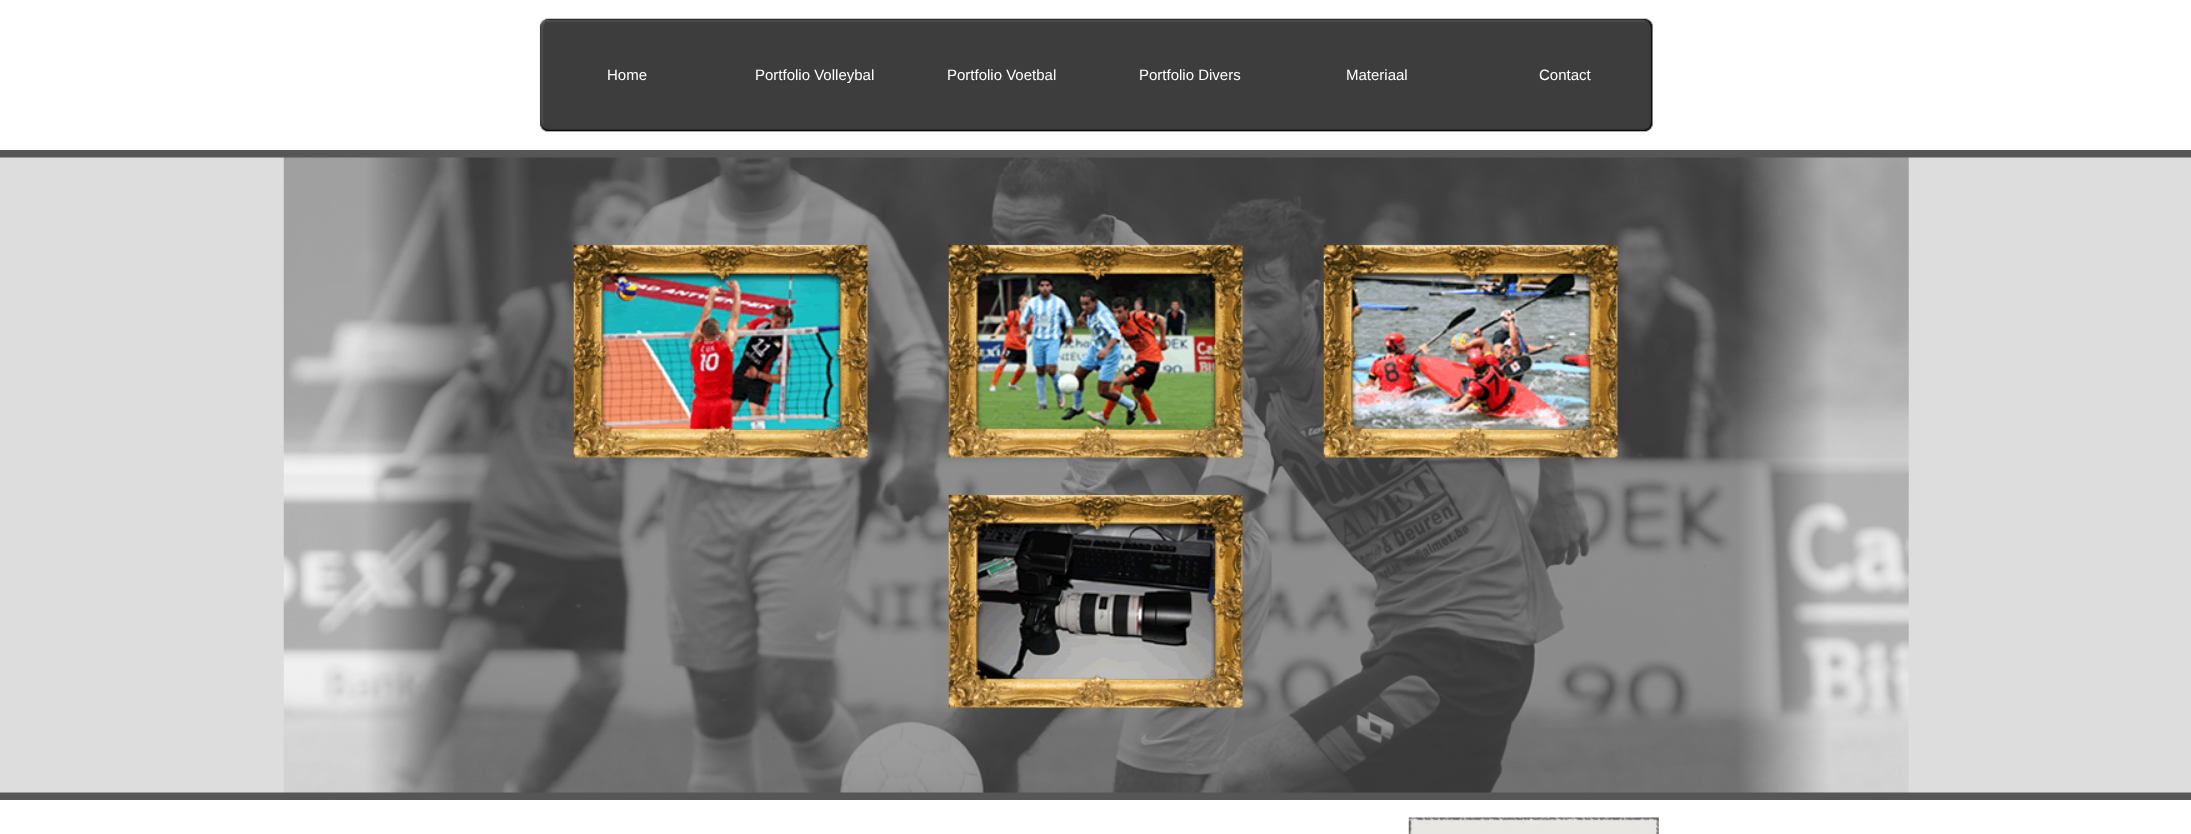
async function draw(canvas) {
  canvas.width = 2191;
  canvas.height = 834;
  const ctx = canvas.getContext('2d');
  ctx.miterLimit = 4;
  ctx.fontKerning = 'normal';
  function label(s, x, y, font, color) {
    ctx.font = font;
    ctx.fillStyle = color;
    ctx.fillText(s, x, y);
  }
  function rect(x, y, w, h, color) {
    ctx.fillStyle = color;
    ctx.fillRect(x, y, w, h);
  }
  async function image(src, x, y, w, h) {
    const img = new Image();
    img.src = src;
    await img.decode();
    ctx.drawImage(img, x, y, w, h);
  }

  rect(0, 0, 2191, 834, '#fff');
  await image('assets/img1.png', 539, 18, 1114, 114);
  label('Home', 607, 80, '15px Liberation Sans', '#fff');
  label('Portfolio Volleybal', 755, 80, '15px Liberation Sans', '#fff');
  label('Portfolio Voetbal', 947, 80, '15px Liberation Sans', '#fff');
  label('Portfolio Divers', 1139, 80, '15px Liberation Sans', '#fff');
  label('Materiaal', 1346, 80, '15px Liberation Sans', '#fff');
  label('Contact', 1539, 80, '15px Liberation Sans', '#fff');
  await image('assets/img2.png', 0, 150, 2191, 650);
  await image('assets/img3.png', 283, 157, 1626, 636);
  await image('assets/img4.png', 573, 244, 295, 214);
  await image('assets/img5.png', 948, 244, 295, 214);
  await image('assets/img6.png', 1323, 244, 295, 214);
  await image('assets/img7.png', 948, 494, 295, 214);
  await image('assets/img8.png', 1408, 817, 251, 17);
}

draw(document.querySelector('canvas'));
